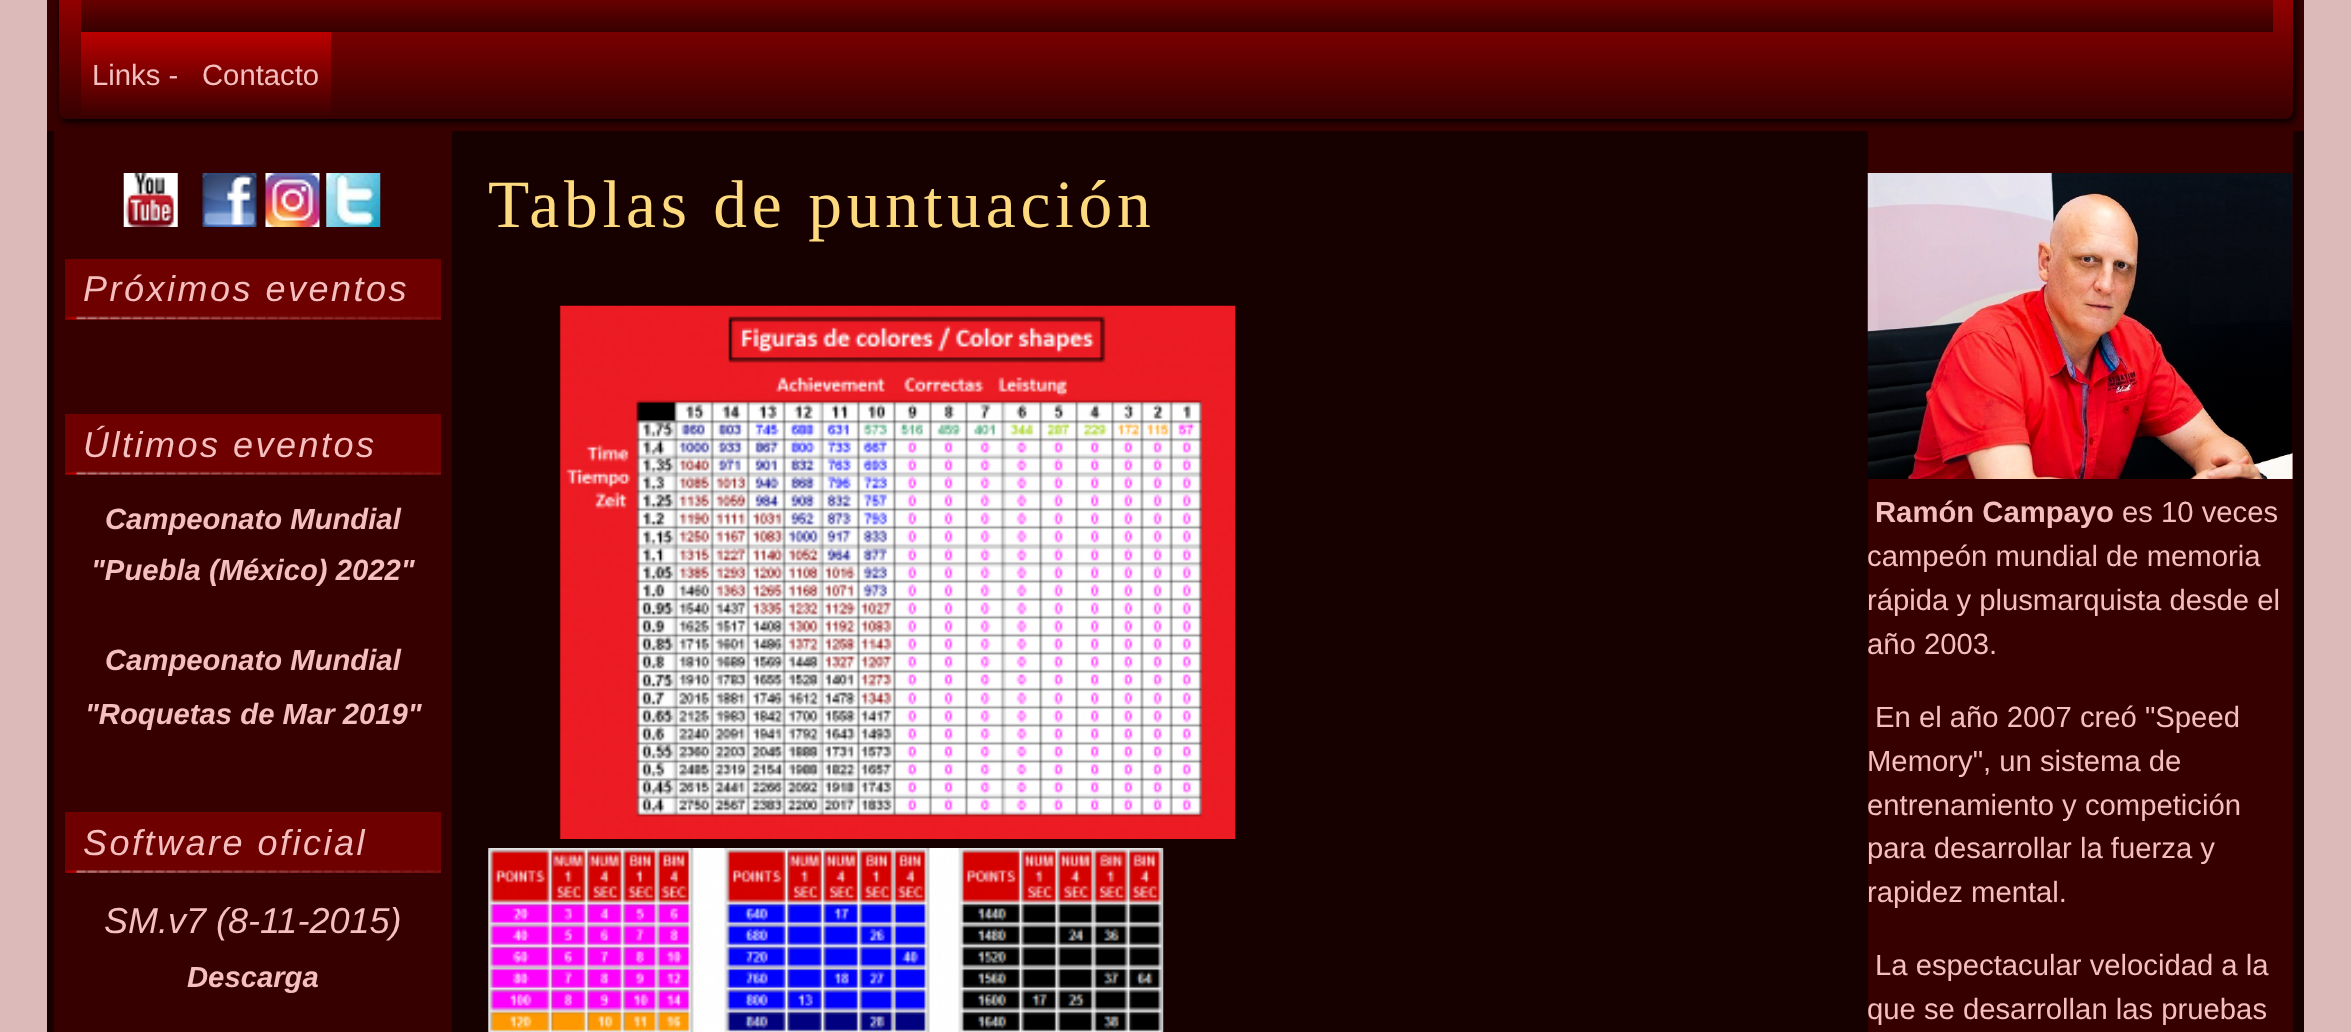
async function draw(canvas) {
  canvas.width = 2351;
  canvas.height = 1032;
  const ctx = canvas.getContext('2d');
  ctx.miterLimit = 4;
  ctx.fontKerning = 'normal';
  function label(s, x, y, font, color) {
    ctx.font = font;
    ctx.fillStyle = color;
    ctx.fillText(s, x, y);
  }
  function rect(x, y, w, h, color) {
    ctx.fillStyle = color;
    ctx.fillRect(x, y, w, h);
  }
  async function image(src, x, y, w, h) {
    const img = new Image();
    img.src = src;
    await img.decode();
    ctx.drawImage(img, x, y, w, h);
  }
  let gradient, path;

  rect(0, 0, 2351, 1032, '#ddbaba');
  rect(47, 131, 2257, 901, '#160000');
  rect(47, 0, 2257, 131, '#370000');
  rect(1868, 131, 425, 901, '#370000');
  ctx.fillStyle = '#000';
  ctx.filter = 'blur(3.5px)';
  ctx.beginPath();
  ctx.roundRect(61, -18, 2234, 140, 7);
  ctx.fill();
  ctx.filter = 'none';
  ctx.save();
  ctx.beginPath();
  ctx.roundRect(59, -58, 2234, 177, 7);
  ctx.clip();
  gradient = ctx.createLinearGradient(59, -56, 59, 119);
  gradient.addColorStop(0, '#bc0000');
  gradient.addColorStop(1, '#370000');
  ctx.fillStyle = gradient;
  path = new Path2D('M59-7H2293V112C2293 116 2290 119 2286 119H66C62 119 59 116 59 112Z');
  ctx.fill(path);
  ctx.restore();
  gradient = ctx.createLinearGradient(81, -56, 81, 32);
  gradient.addColorStop(0, '#bc0000');
  gradient.addColorStop(1, '#370000');
  ctx.fillStyle = gradient;
  ctx.fillRect(81, 0, 110, 32);
  gradient = ctx.createLinearGradient(191, -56, 191, 32);
  gradient.addColorStop(0, '#bc0000');
  gradient.addColorStop(1, '#370000');
  ctx.fillStyle = gradient;
  ctx.fillRect(191, 0, 198, 32);
  gradient = ctx.createLinearGradient(389, -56, 389, 32);
  gradient.addColorStop(0, '#bc0000');
  gradient.addColorStop(1, '#370000');
  ctx.fillStyle = gradient;
  ctx.fillRect(389, 0, 430, 32);
  gradient = ctx.createLinearGradient(819, -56, 819, 32);
  gradient.addColorStop(0, '#bc0000');
  gradient.addColorStop(1, '#370000');
  ctx.fillStyle = gradient;
  ctx.fillRect(819, 0, 227, 32);
  gradient = ctx.createLinearGradient(1046, -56, 1046, 32);
  gradient.addColorStop(0, '#bc0000');
  gradient.addColorStop(1, '#370000');
  ctx.fillStyle = gradient;
  ctx.fillRect(1046, 0, 156, 32);
  gradient = ctx.createLinearGradient(1202, -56, 1202, 32);
  gradient.addColorStop(0, '#bc0000');
  gradient.addColorStop(1, '#370000');
  ctx.fillStyle = gradient;
  ctx.fillRect(1202, 0, 184, 32);
  gradient = ctx.createLinearGradient(1386, -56, 1386, 32);
  gradient.addColorStop(0, '#bc0000');
  gradient.addColorStop(1, '#370000');
  ctx.fillStyle = gradient;
  ctx.fillRect(1386, 0, 268, 32);
  gradient = ctx.createLinearGradient(1654, -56, 1654, 32);
  gradient.addColorStop(0, '#bc0000');
  gradient.addColorStop(1, '#370000');
  ctx.fillStyle = gradient;
  ctx.fillRect(1654, 0, 151, 32);
  gradient = ctx.createLinearGradient(1805, -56, 1805, 32);
  gradient.addColorStop(0, '#bc0000');
  gradient.addColorStop(1, '#370000');
  ctx.fillStyle = gradient;
  ctx.fillRect(1805, 0, 128, 32);
  gradient = ctx.createLinearGradient(1933, -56, 1933, 32);
  gradient.addColorStop(0, '#bc0000');
  gradient.addColorStop(1, '#370000');
  ctx.fillStyle = gradient;
  ctx.fillRect(1933, 0, 340, 32);
  gradient = ctx.createLinearGradient(81, 32, 81, 119);
  gradient.addColorStop(0, '#bc0000');
  gradient.addColorStop(1, '#370000');
  ctx.fillStyle = gradient;
  ctx.fillRect(81, 32, 110, 83);
  label('Links -', 92, 85, '29.25px Liberation Sans', '#f6bfbf');
  gradient = ctx.createLinearGradient(191, 32, 191, 119);
  gradient.addColorStop(0, '#bc0000');
  gradient.addColorStop(1, '#370000');
  ctx.fillStyle = gradient;
  ctx.fillRect(191, 32, 140, 83);
  label('Contacto', 202, 85, '29.25px Liberation Sans', '#f6bfbf');
  rect(54, 131, 398, 901, '#370000');
  await image('assets/img1.png', 123, 173, 55, 54);
  await image('assets/img2.png', 202, 173, 55, 54);
  await image('assets/img3.png', 265, 173, 55, 54);
  await image('assets/img4.png', 326, 173, 55, 54);
  rect(65, 259, 376, 61, '#6f0000');
  await image('assets/img5.png', 65, 316, 376, 4);
  ctx.letterSpacing = '2.5px';
  label('Próximos eventos', 83, 301, 'italic 36px Liberation Sans', '#f6bfbf');
  rect(65, 414, 376, 61, '#6f0000');
  await image('assets/img6.png', 65, 471, 376, 4);
  label('Últimos eventos', 83, 457, 'italic 36px Liberation Sans', '#f6bfbf');
  ctx.letterSpacing = '0px';
  label('Campeonato Mundial', 105, 529, 'italic bold 29.25px Liberation Sans', '#f6bfbf');
  label('"Puebla (México) 2022"', 91, 580, 'italic bold 29.25px Liberation Sans', '#f6bfbf');
  label('Campeonato Mundial', 105, 670, 'italic bold 29.25px Liberation Sans', '#f6bfbf');
  label('"Roquetas de Mar 2019"', 85, 724, 'italic bold 29.25px Liberation Sans', '#f6bfbf');
  rect(65, 812, 376, 61, '#6f0000');
  await image('assets/img7.png', 65, 870, 376, 3);
  ctx.letterSpacing = '2.5px';
  label('Software oficial', 83, 855, 'italic 36px Liberation Sans', '#f6bfbf');
  ctx.letterSpacing = '0px';
  label('SM.v7 (8-11-2015)', 104, 933, 'italic 36px Liberation Sans', '#f6bfbf');
  label('Descarga', 187, 987, 'italic bold 29.25px Liberation Sans', '#f6bfbf');
  ctx.letterSpacing = '4.75px';
  label('Tablas de puntuación', 488, 227, '67.5px Liberation Serif', '#fdda7e');
  await image('assets/img8.png', 560, 305, 676, 534);
  await image('assets/img9.png', 488, 848, 676, 184);
  await image('assets/img10.png', 1867, 173, 426, 306);
  ctx.letterSpacing = '0px';
  label('Ramón Campayo', 1875, 522, 'bold 29.25px Liberation Sans', '#f6bfbf');
  label('es 10 veces', 2122, 522, '29.25px Liberation Sans', '#f6bfbf');
  label('campeón mundial de memoria', 1867, 566, '29.25px Liberation Sans', '#f6bfbf');
  label('rápida y plusmarquista desde el', 1867, 610, '29.25px Liberation Sans', '#f6bfbf');
  label('año 2003.', 1867, 654, '29.25px Liberation Sans', '#f6bfbf');
  label('En el año 2007 creó "Speed', 1875, 727, '29.25px Liberation Sans', '#f6bfbf');
  label('Memory", un sistema de', 1867, 771, '29.25px Liberation Sans', '#f6bfbf');
  label('entrenamiento y competición', 1867, 815, '29.25px Liberation Sans', '#f6bfbf');
  label('para desarrollar la fuerza y', 1867, 858, '29.25px Liberation Sans', '#f6bfbf');
  label('rapidez mental.', 1867, 902, '29.25px Liberation Sans', '#f6bfbf');
  label('La espectacular velocidad a la', 1875, 975, '29.25px Liberation Sans', '#f6bfbf');
  label('que se desarrollan las pruebas', 1867, 1019, '29.25px Liberation Sans', '#f6bfbf');
}

draw(document.querySelector('canvas'));
